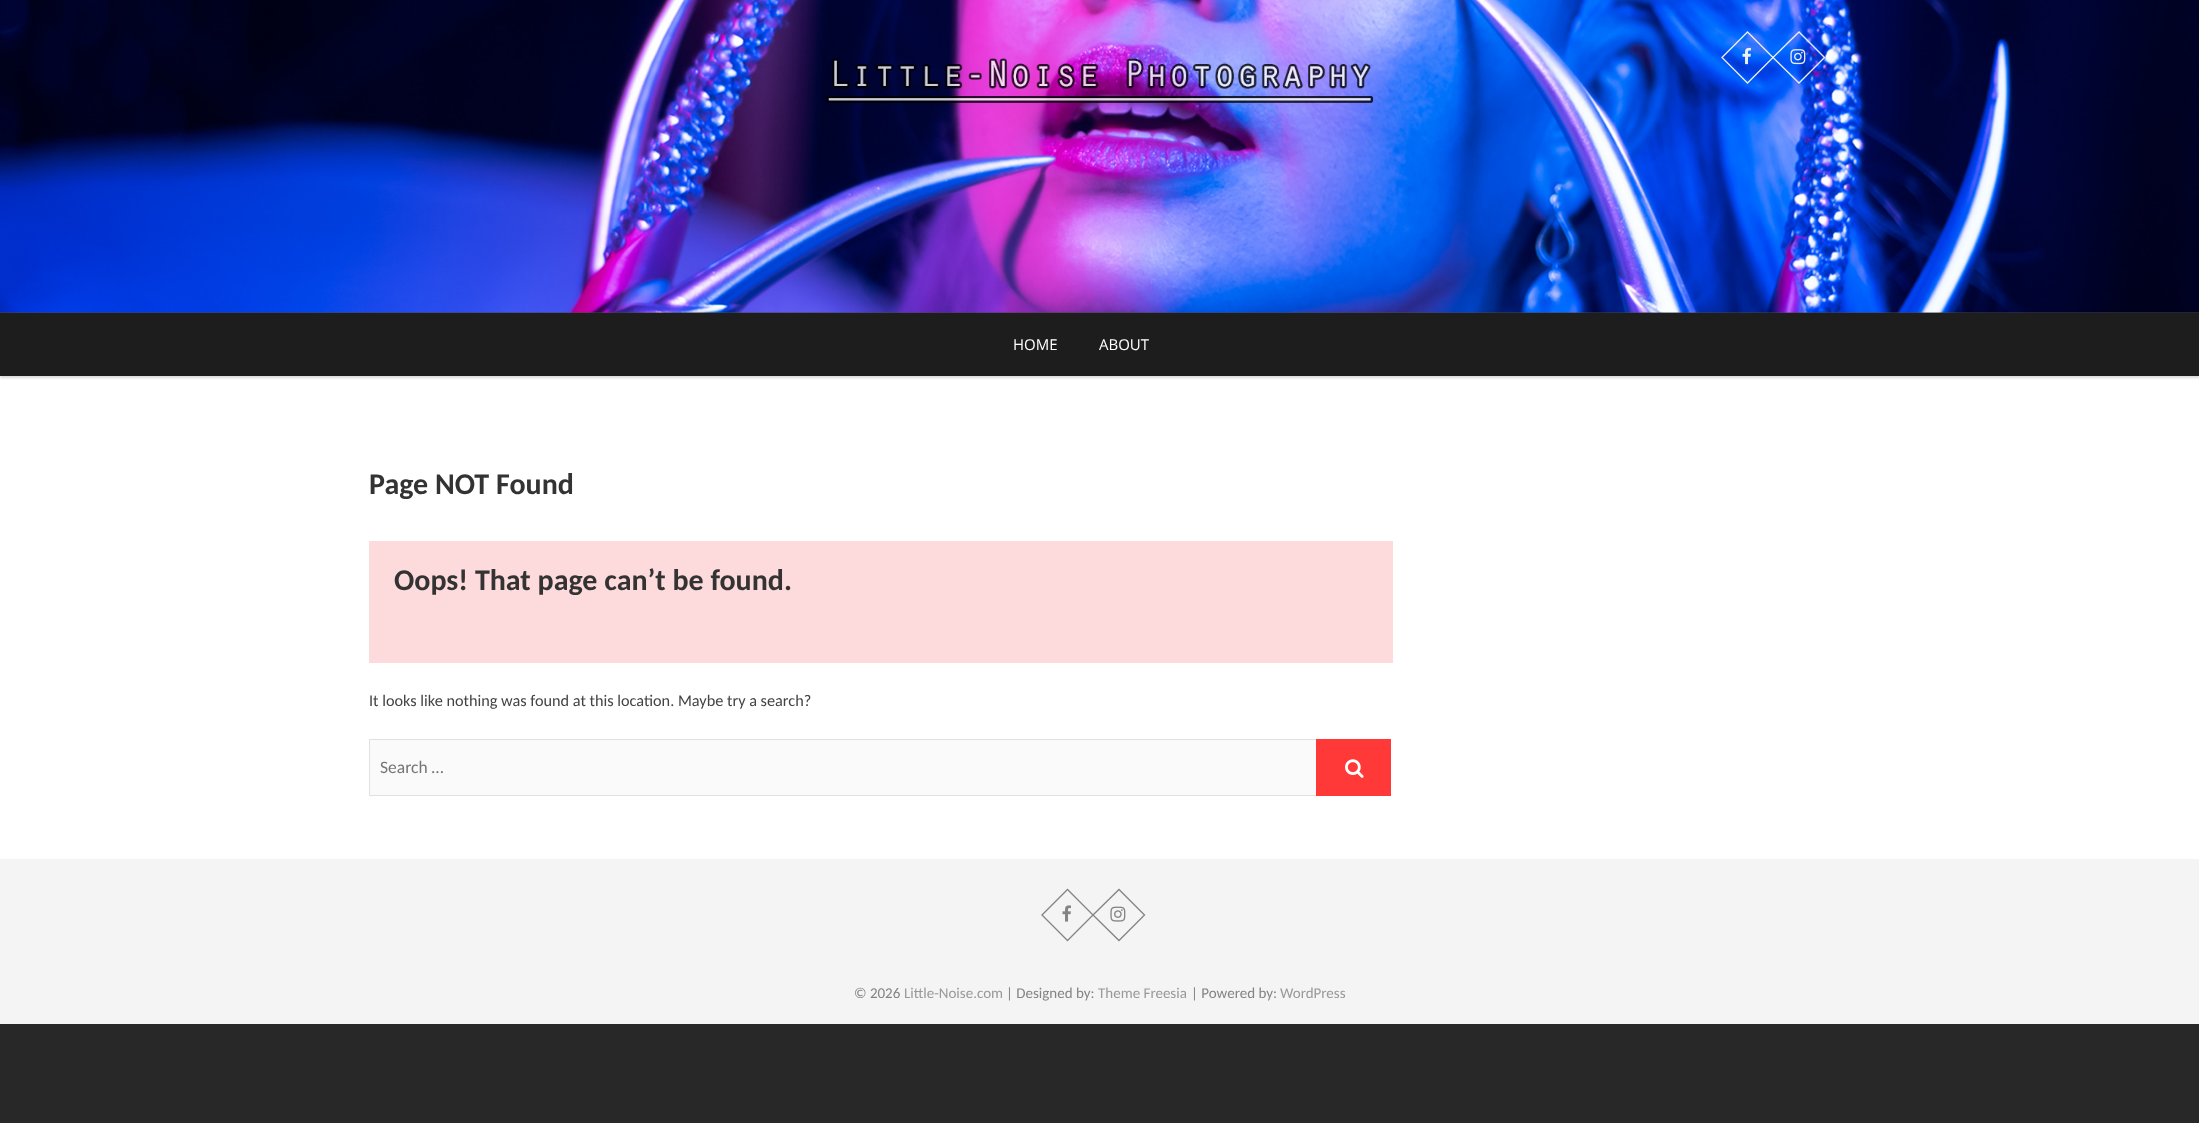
async function draw(canvas) {
  canvas.width = 2199;
  canvas.height = 1123;
  const ctx = canvas.getContext('2d');
  ctx.miterLimit = 4;
  ctx.fontKerning = 'normal';
  function label(s, x, y, font, color) {
    ctx.font = font;
    ctx.fillStyle = color;
    ctx.fillText(s, x, y);
  }
  function rect(x, y, w, h, color) {
    ctx.fillStyle = color;
    ctx.fillRect(x, y, w, h);
  }
  async function image(src, x, y, w, h) {
    const img = new Image();
    img.src = src;
    await img.decode();
    ctx.drawImage(img, x, y, w, h);
  }
  let path;

  rect(0, 0, 2199, 1123, '#282828');
  rect(0, 376, 2199, 483, '#fff');
  rect(0, 312, 2199, 1, '#484848');
  await image('assets/img1.png', 0, 0, 2199, 313);
  await image('assets/img2.png', 826, 58, 547, 45);
  path = new Path2D('M1722 57.5L1747.5 32L1773 57.5L1747.5 83Z');
  ctx.strokeStyle = '#eee';
  ctx.lineWidth = 1.3;
  ctx.stroke(path);
  await image('assets/img3.png', 1742, 47, 9, 18);
  path = new Path2D('M1773 57.5L1799 32L1824.5 57.5L1799 83Z');
  ctx.stroke(path);
  await image('assets/img4.png', 1790, 49, 16, 16);
  ctx.fillStyle = '#00000026';
  ctx.filter = 'blur(1px)';
  ctx.beginPath();
  ctx.rect(0, 314, 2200, 64);
  ctx.fill();
  ctx.filter = 'none';
  rect(0, 313, 2199, 63, '#1d1d1d');
  label('HOME', 1013, 350, '15px Open Sans', '#fff');
  label('ABOUT', 1099, 350, '15px Open Sans', '#fff');
  label('Page NOT Found', 369, 494, 'bold 30px Carlito', '#333');
  rect(369, 541, 1024, 122, '#fddbdd');
  label('Oops! That page can’t be found.', 394, 590, 'bold 30px Carlito', '#333');
  label('It looks like nothing was found at this location. Maybe try a search?', 369, 706, '16.25px Carlito', '#444');
  rect(370, 740, 946, 55, '#fafafa');
  ctx.strokeStyle = '#e1e1e1';
  ctx.lineWidth = 1;
  ctx.strokeRect(369.5, 739.5, 948, 56);
  label('Search …', 380, 773, '17.5px Carlito', '#757575');
  rect(1316, 739, 75, 57, '#ff3838');
  await image('assets/img5.png', 1345, 759, 19, 19);
  rect(0, 859, 2199, 165, '#f4f4f4');
  path = new Path2D('M1042 915L1067.5 889.5L1093 915L1067.5 940.5Z');
  ctx.strokeStyle = '#848484';
  ctx.lineWidth = 1.3;
  ctx.stroke(path);
  await image('assets/img6.png', 1062, 905, 9, 17);
  path = new Path2D('M1093 915L1119 889.5L1144.5 915L1119 940.5Z');
  ctx.stroke(path);
  await image('assets/img7.png', 1110, 906, 16, 16);
  label('© 2026', 854, 998, '15px Carlito', '#848484');
  label('Little-Noise.com', 904, 998, '15px Carlito', '#999');
  label('| Designed by:', 1006, 998, '15px Carlito', '#848484');
  label('Theme Freesia', 1098, 998, '15px Carlito', '#999');
  label('| Powered by:', 1191, 998, '15px Carlito', '#848484');
  label('WordPress', 1280, 998, '15px Carlito', '#999');
}

draw(document.querySelector('canvas'));
